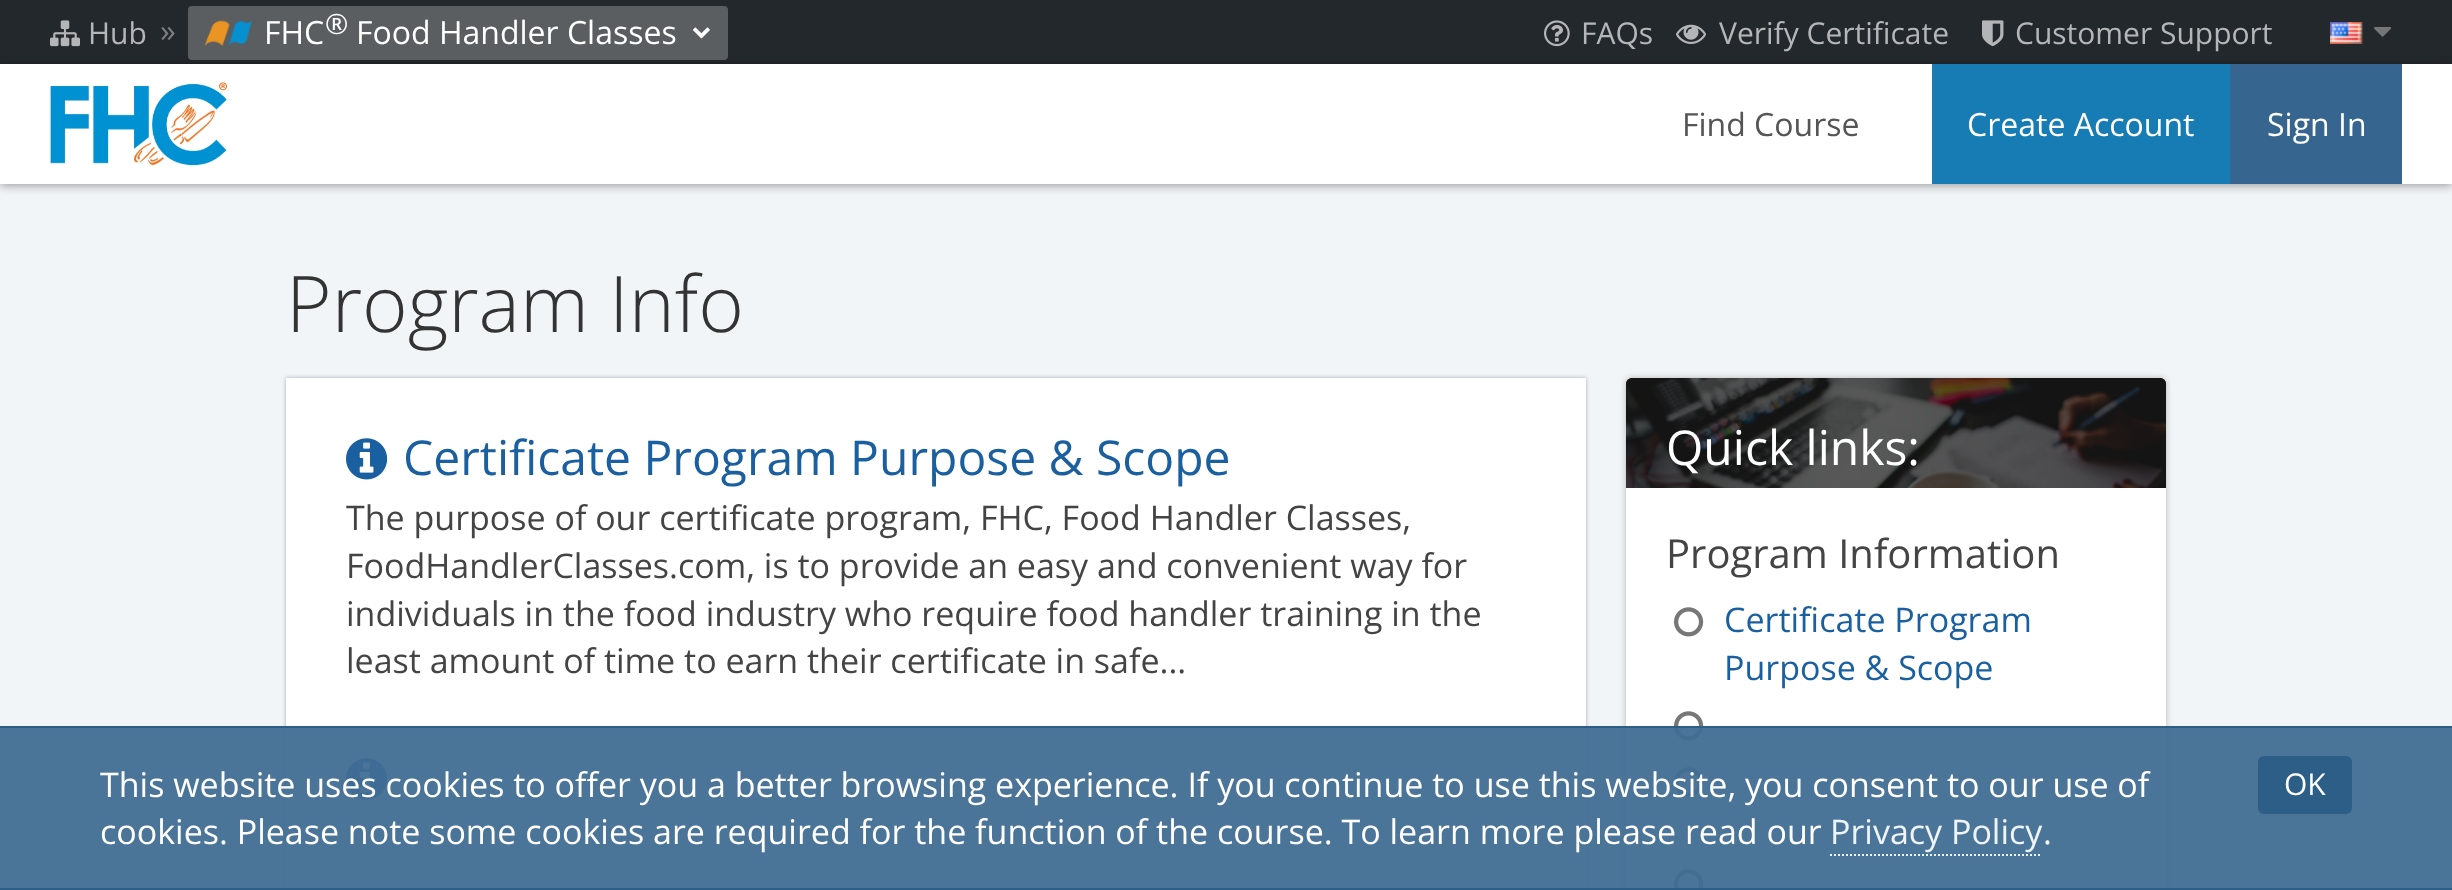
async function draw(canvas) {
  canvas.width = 2452;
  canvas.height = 890;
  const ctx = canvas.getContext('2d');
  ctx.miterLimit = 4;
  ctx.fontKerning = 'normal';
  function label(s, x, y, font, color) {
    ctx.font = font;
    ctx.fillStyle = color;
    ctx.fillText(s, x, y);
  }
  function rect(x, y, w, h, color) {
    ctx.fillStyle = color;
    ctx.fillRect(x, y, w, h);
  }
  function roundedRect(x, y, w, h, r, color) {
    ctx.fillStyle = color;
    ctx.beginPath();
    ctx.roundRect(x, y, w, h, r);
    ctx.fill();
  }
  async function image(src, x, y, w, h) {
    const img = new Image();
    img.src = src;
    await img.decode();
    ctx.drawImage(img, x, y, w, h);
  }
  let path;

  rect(0, 0, 2452, 890, '#fff');
  rect(0, 0, 2452, 64, '#23282d');
  await image('assets/img1.png', 50, 20, 30, 27);
  label('Hub', 88, 44, '30px Open Sans', '#b4b6b8');
  label('»', 160, 42, '32px Open Sans', '#7b7e81');
  rect(0, 184, 2452, 704, '#f2f5f7');
  ctx.save();
  path = new Path2D('M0 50H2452V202H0ZM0 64H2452V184H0Z');
  ctx.clip(path, 'evenodd');
  ctx.fillStyle = '#00000059';
  ctx.filter = 'blur(5px)';
  ctx.beginPath();
  ctx.rect(0, 66, 2452, 120);
  ctx.fill();
  ctx.filter = 'none';
  ctx.restore();
  roundedRect(188, 6, 540, 54, 4, '#5a5e61');
  await image('assets/img2.png', 204, 20, 49, 26);
  label('FHC', 264, 44, '32px Open Sans', '#fff');
  label('®', 325, 34, '28px Open Sans', '#fff');
  label('Food Handler Classes', 356, 44, '32px Open Sans', '#fff');
  await image('assets/img3.png', 693, 27, 17, 12);
  await image('assets/img4.png', 1544, 20, 26, 27);
  label('FAQs', 1581, 44, '30px Open Sans', '#b4b6b8');
  await image('assets/img5.png', 1676, 24, 30, 20);
  label('Verify Certificate', 1719, 44, '30px Open Sans', '#b4b6b8');
  await image('assets/img6.png', 1982, 20, 22, 27);
  label('Customer Support', 2015, 44, '30px Open Sans', '#b4b6b8');
  await image('assets/img7.png', 2330, 22, 33, 22);
  await image('assets/img8.png', 2374, 27, 18, 10);
  await image('assets/img9.png', 50, 82, 178, 84);
  label('Find Course', 1682, 136, '32px Open Sans', '#555');
  rect(1932, 64, 298, 120, '#177bb4');
  label('Create Account', 1967, 136, '32px Open Sans', '#fff');
  rect(2230, 64, 172, 120, '#366690');
  label('Sign In', 2267, 136, '32px Open Sans', '#fff');
  label('Program Info', 286, 332, '300 78px Open Sans', '#333');
  ctx.fillStyle = '#25333c59';
  ctx.filter = 'blur(2px)';
  ctx.beginPath();
  ctx.rect(286, 378, 1300, 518);
  ctx.fill();
  ctx.filter = 'none';
  rect(286, 378, 1300, 510, '#fff');
  await image('assets/img10.png', 346, 438, 42, 42);
  label('Certificate Program Purpose & Scope', 403, 475, '48px Open Sans', '#1a5f9f');
  label('The purpose of our certificate program, FHC, Food Handler Classes,', 346, 530, '34px Open Sans', '#444');
  label('FoodHandlerClasses.com, is to provide an easy and convenient way for', 346, 578, '34px Open Sans', '#444');
  label('individuals in the food industry who require food handler training in the', 346, 626, '34px Open Sans', '#444');
  label('least amount of time to earn their certificate in safe...', 346, 673, '34px Open Sans', '#444');
  await image('assets/img10.png', 346, 758, 42, 42);
  ctx.fillStyle = '#00000040';
  ctx.filter = 'blur(3px)';
  ctx.beginPath();
  ctx.roundRect(1626, 378, 540, 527, 6);
  ctx.fill();
  ctx.filter = 'none';
  roundedRect(1626, 378, 540, 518, 6, '#fff');
  await image('assets/img11.png', 1626, 378, 540, 6);
  await image('assets/img12.png', 1626, 378, 540, 110);
  label('Quick links:', 1666, 465, '48px Open Sans', '#fff');
  label('Program Information', 1666, 568, '40px Open Sans', '#444');
  await image('assets/img13.png', 1674, 607, 30, 30);
  label('Certificate Program', 1724, 632, '34px Open Sans', '#1a5f9f');
  label('Purpose & Scope', 1724, 680, '34px Open Sans', '#1a5f9f');
  await image('assets/img13.png', 1674, 711, 30, 30);
  await image('assets/img13.png', 1674, 767, 30, 30);
  await image('assets/img14.png', 1674, 869, 30, 19);
  rect(0, 728, 2452, 160, '#416d94f2');
  rect(0, 726, 2452, 2, '#2c5e88');
  rect(0, 888, 2452, 2, '#2c5e88');
  label('This website uses cookies to offer you a better browsing experience. If you continue to use this website, you consent to our use of', 100, 797, '34px Open Sans', '#fff');
  label('cookies. Please note some cookies are required for the function of the course. To learn more please read our', 100, 844, '34px Open Sans', '#fff');
  label('Privacy Policy', 1830, 844, '34px Open Sans', '#eff4f8');
  path = new Path2D('M1830 855H2042');
  ctx.strokeStyle = '#eff4f8';
  ctx.lineWidth = 2;
  ctx.setLineDash([2, 2]);
  ctx.stroke(path);
  label('.', 2043, 844, '34px Open Sans', '#fff');
  roundedRect(2258, 756, 94, 58, 6, '#2c5e88');
  label('OK', 2284, 795, '30px Open Sans', '#fff');
}

draw(document.querySelector('canvas'));
